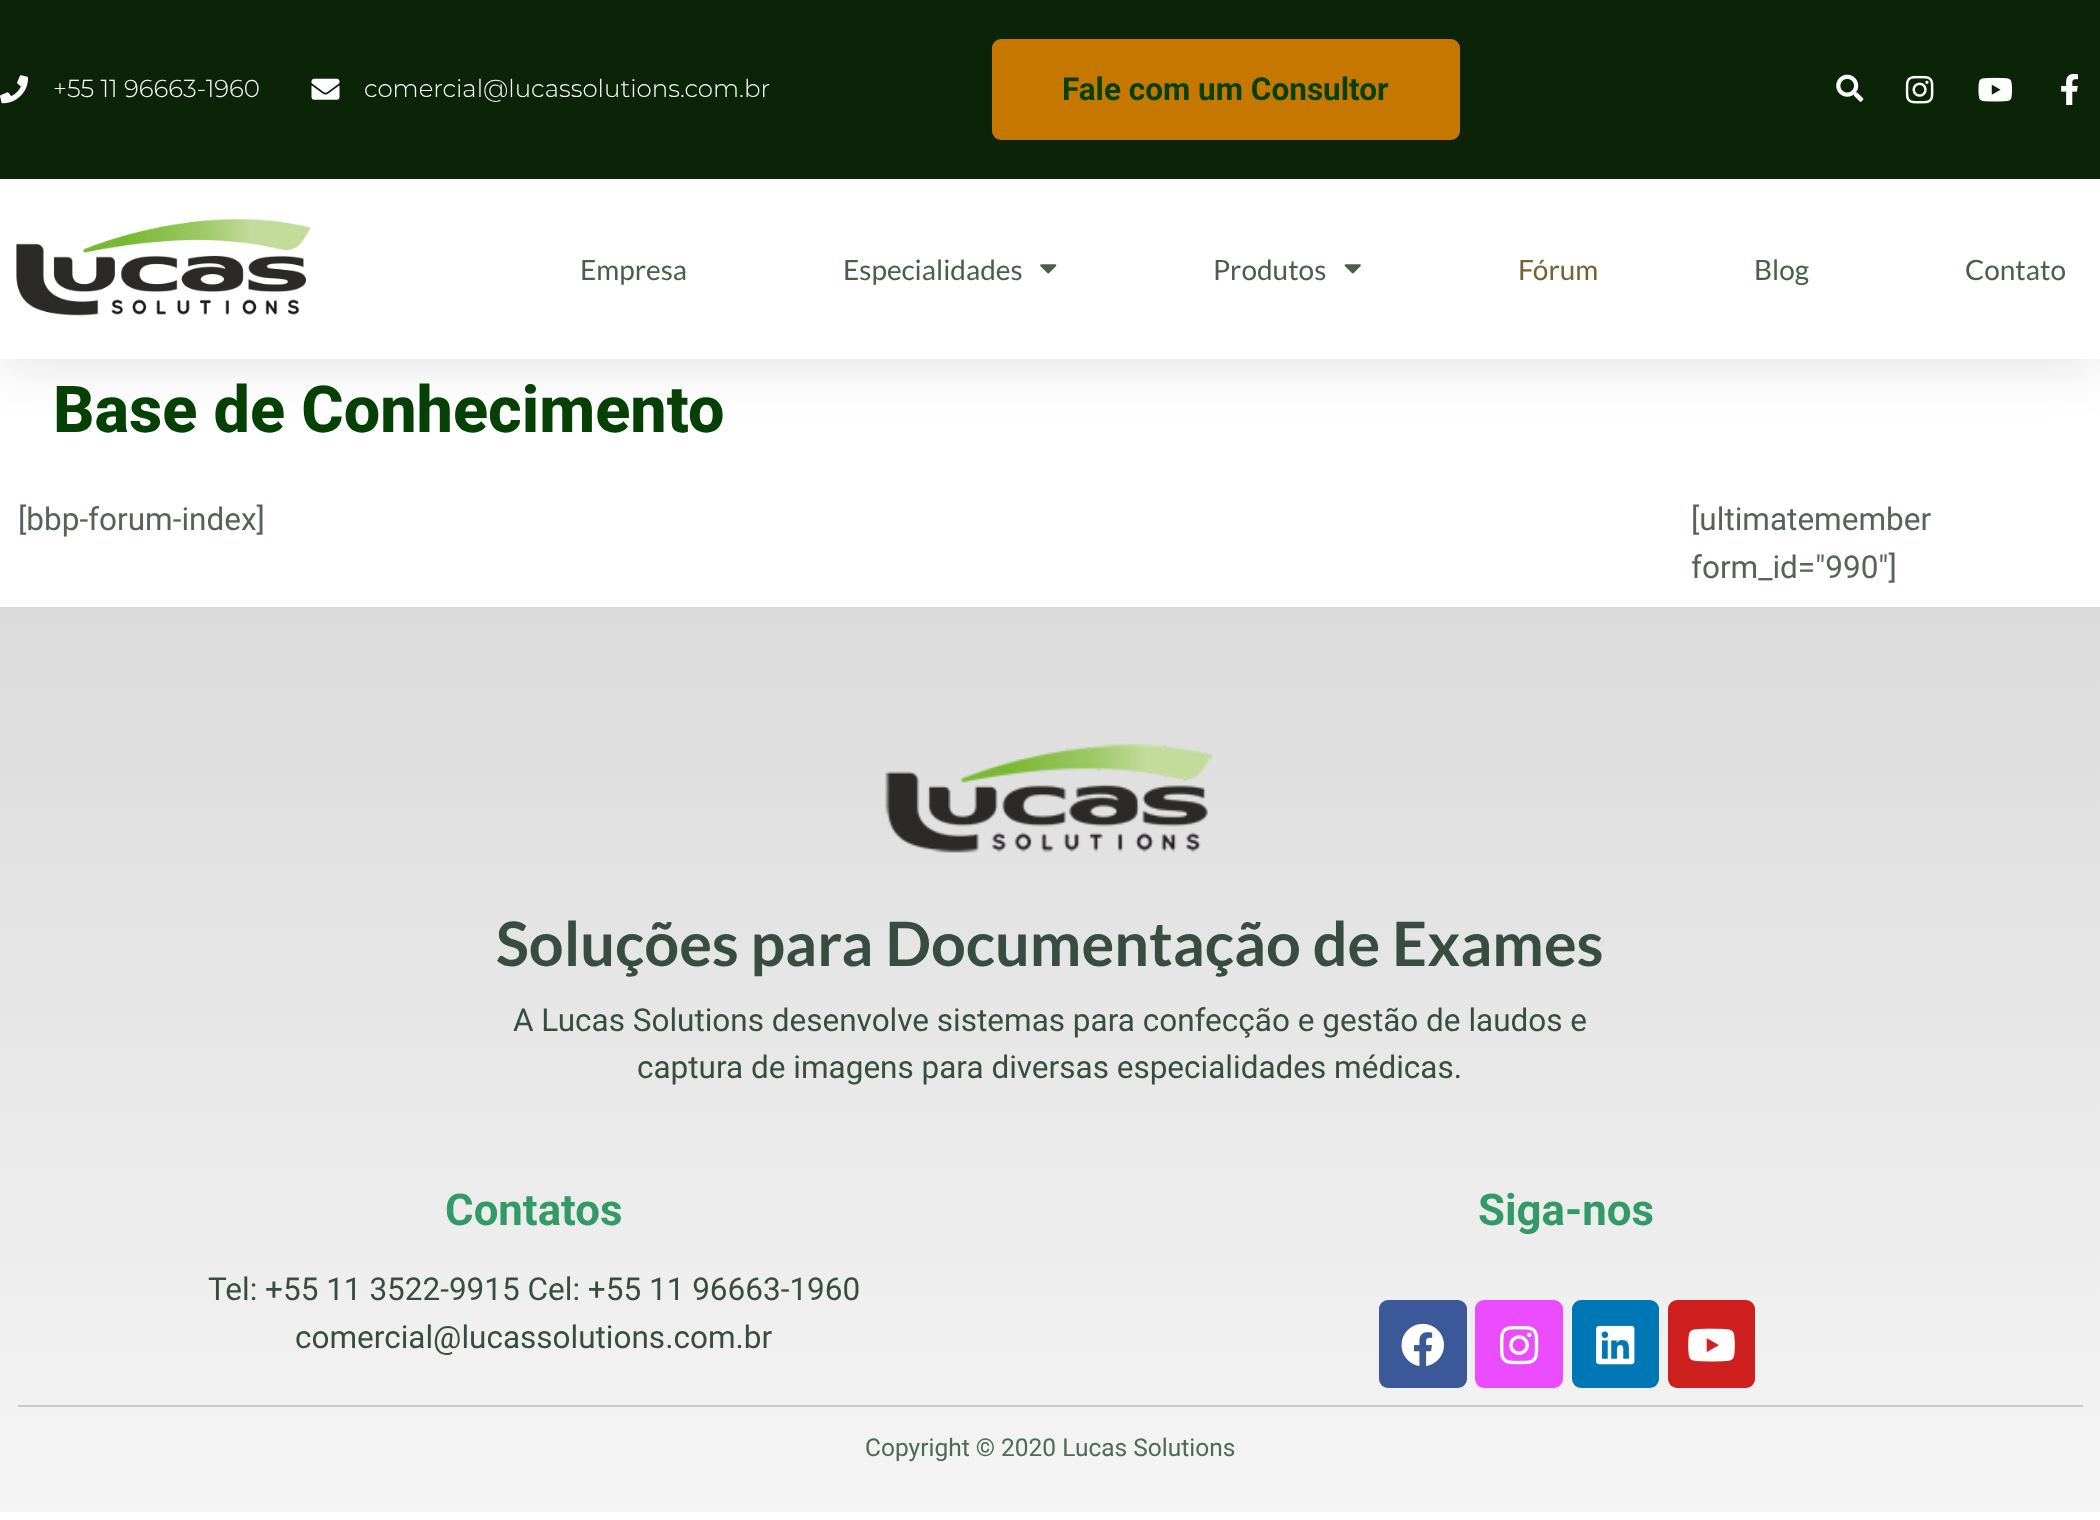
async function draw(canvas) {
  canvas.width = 2100;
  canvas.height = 1520;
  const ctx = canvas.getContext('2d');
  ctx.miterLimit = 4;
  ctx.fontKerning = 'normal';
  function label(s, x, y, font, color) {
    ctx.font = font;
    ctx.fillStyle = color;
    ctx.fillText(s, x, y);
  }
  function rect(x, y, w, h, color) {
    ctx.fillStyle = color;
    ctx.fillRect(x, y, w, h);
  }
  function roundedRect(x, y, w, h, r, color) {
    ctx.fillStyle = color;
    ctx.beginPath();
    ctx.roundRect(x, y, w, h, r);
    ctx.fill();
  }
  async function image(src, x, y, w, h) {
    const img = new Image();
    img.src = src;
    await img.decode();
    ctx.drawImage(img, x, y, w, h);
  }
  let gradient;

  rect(0, 0, 2100, 1520, '#fff');
  ctx.fillStyle = '#0000001a';
  ctx.filter = 'blur(26px)';
  ctx.beginPath();
  ctx.rect(0, 9, 2100, 359);
  ctx.fill();
  ctx.filter = 'none';
  rect(0, 0, 2100, 179, '#0b2408');
  await image('assets/img1.png', 0, 75, 29, 29);
  label('+55 11 96663-1960', 53, 97, '300 24.5px Montserrat', '#fff');
  await image('assets/img2.png', 311, 78, 29, 22);
  label('comercial@lucassolutions.com.br', 364, 97, '300 24.5px Montserrat', '#fff');
  roundedRect(992, 39, 468, 101, 9, '#c67700');
  label('Fale com um Consultor', 1062, 100, 'bold 31.5px Roboto', '#054105');
  await image('assets/img3.png', 1836, 74, 28, 28);
  await image('assets/img4.png', 1905, 75, 29, 29);
  await image('assets/img5.png', 1978, 77, 34, 25);
  await image('assets/img6.png', 2061, 74, 18, 31);
  rect(0, 179, 2100, 180, '#fff');
  await image('assets/img7.png', 16, 218, 295, 98);
  label('Empresa', 580, 280, '28px Lato', '#495f48');
  label('Especialidades', 843, 280, '28px Lato', '#495f48');
  await image('assets/img8.png', 1040, 264, 17, 10);
  label('Produtos', 1213, 280, '28px Lato', '#495f48');
  await image('assets/img9.png', 1344, 264, 17, 10);
  label('Fórum', 1518, 280, '28px Lato', '#766131');
  label('Blog', 1754, 280, '28px Lato', '#495f48');
  label('Contato', 1965, 280, '28px Lato', '#495f48');
  label('Base de Conhecimento', 53, 432, '800 64.75px Roboto', '#054105');
  label('[bbp-forum-index]', 18, 530, '31.5px Roboto', '#556358');
  label('[ultimatemember', 1691, 530, '31.5px Roboto', '#556358');
  label('form_id="990"]', 1691, 578, '31.5px Roboto', '#556358');
  gradient = ctx.createLinearGradient(1050, 607, 1050, 1512);
  gradient.addColorStop(0, '#dbdbdb');
  gradient.addColorStop(1, '#f5f5f5');
  ctx.fillStyle = gradient;
  ctx.fillRect(0, 607, 2100, 905);
  await image('assets/img10.png', 885, 743, 328, 110);
  label('Soluções para Documentação de Exames', 496, 966, 'bold 61.25px Lato', '#374d3f');
  label('A Lucas Solutions desenvolve sistemas para confecção e gestão de laudos e', 513, 1031, '31.5px Roboto', '#374d3f');
  label('captura de imagens para diversas especialidades médicas.', 637, 1078, '31.5px Roboto', '#374d3f');
  label('Contatos', 445, 1225, 'bold 43.75px Roboto', '#396');
  label('Tel: +55 11 3522-9915 Cel: +55 11 96663-1960', 208, 1300, '31.5px Roboto', '#374d3f');
  label('comercial@lucassolutions.com.br', 295, 1348, '31.5px Roboto', '#374d3f');
  label('Siga-nos', 1478, 1225, 'bold 43.75px Roboto', '#396');
  roundedRect(1379, 1300, 88, 88, 9, '#3b5998');
  await image('assets/img11.png', 1401, 1323, 43, 43);
  roundedRect(1475, 1300, 88, 88, 9, '#ec4cff');
  await image('assets/img12.png', 1499, 1325, 40, 40);
  roundedRect(1572, 1300, 87, 88, 9, '#0077b5');
  await image('assets/img13.png', 1596, 1325, 39, 40);
  roundedRect(1668, 1300, 87, 88, 9, '#cd201f');
  await image('assets/img14.png', 1688, 1328, 47, 34);
  rect(18, 1405, 2065, 2, '#c9c9c9');
  label('Copyright © 2020 Lucas Solutions', 865, 1456, '24.5px Roboto', '#4d6a58');
}

draw(document.querySelector('canvas'));
